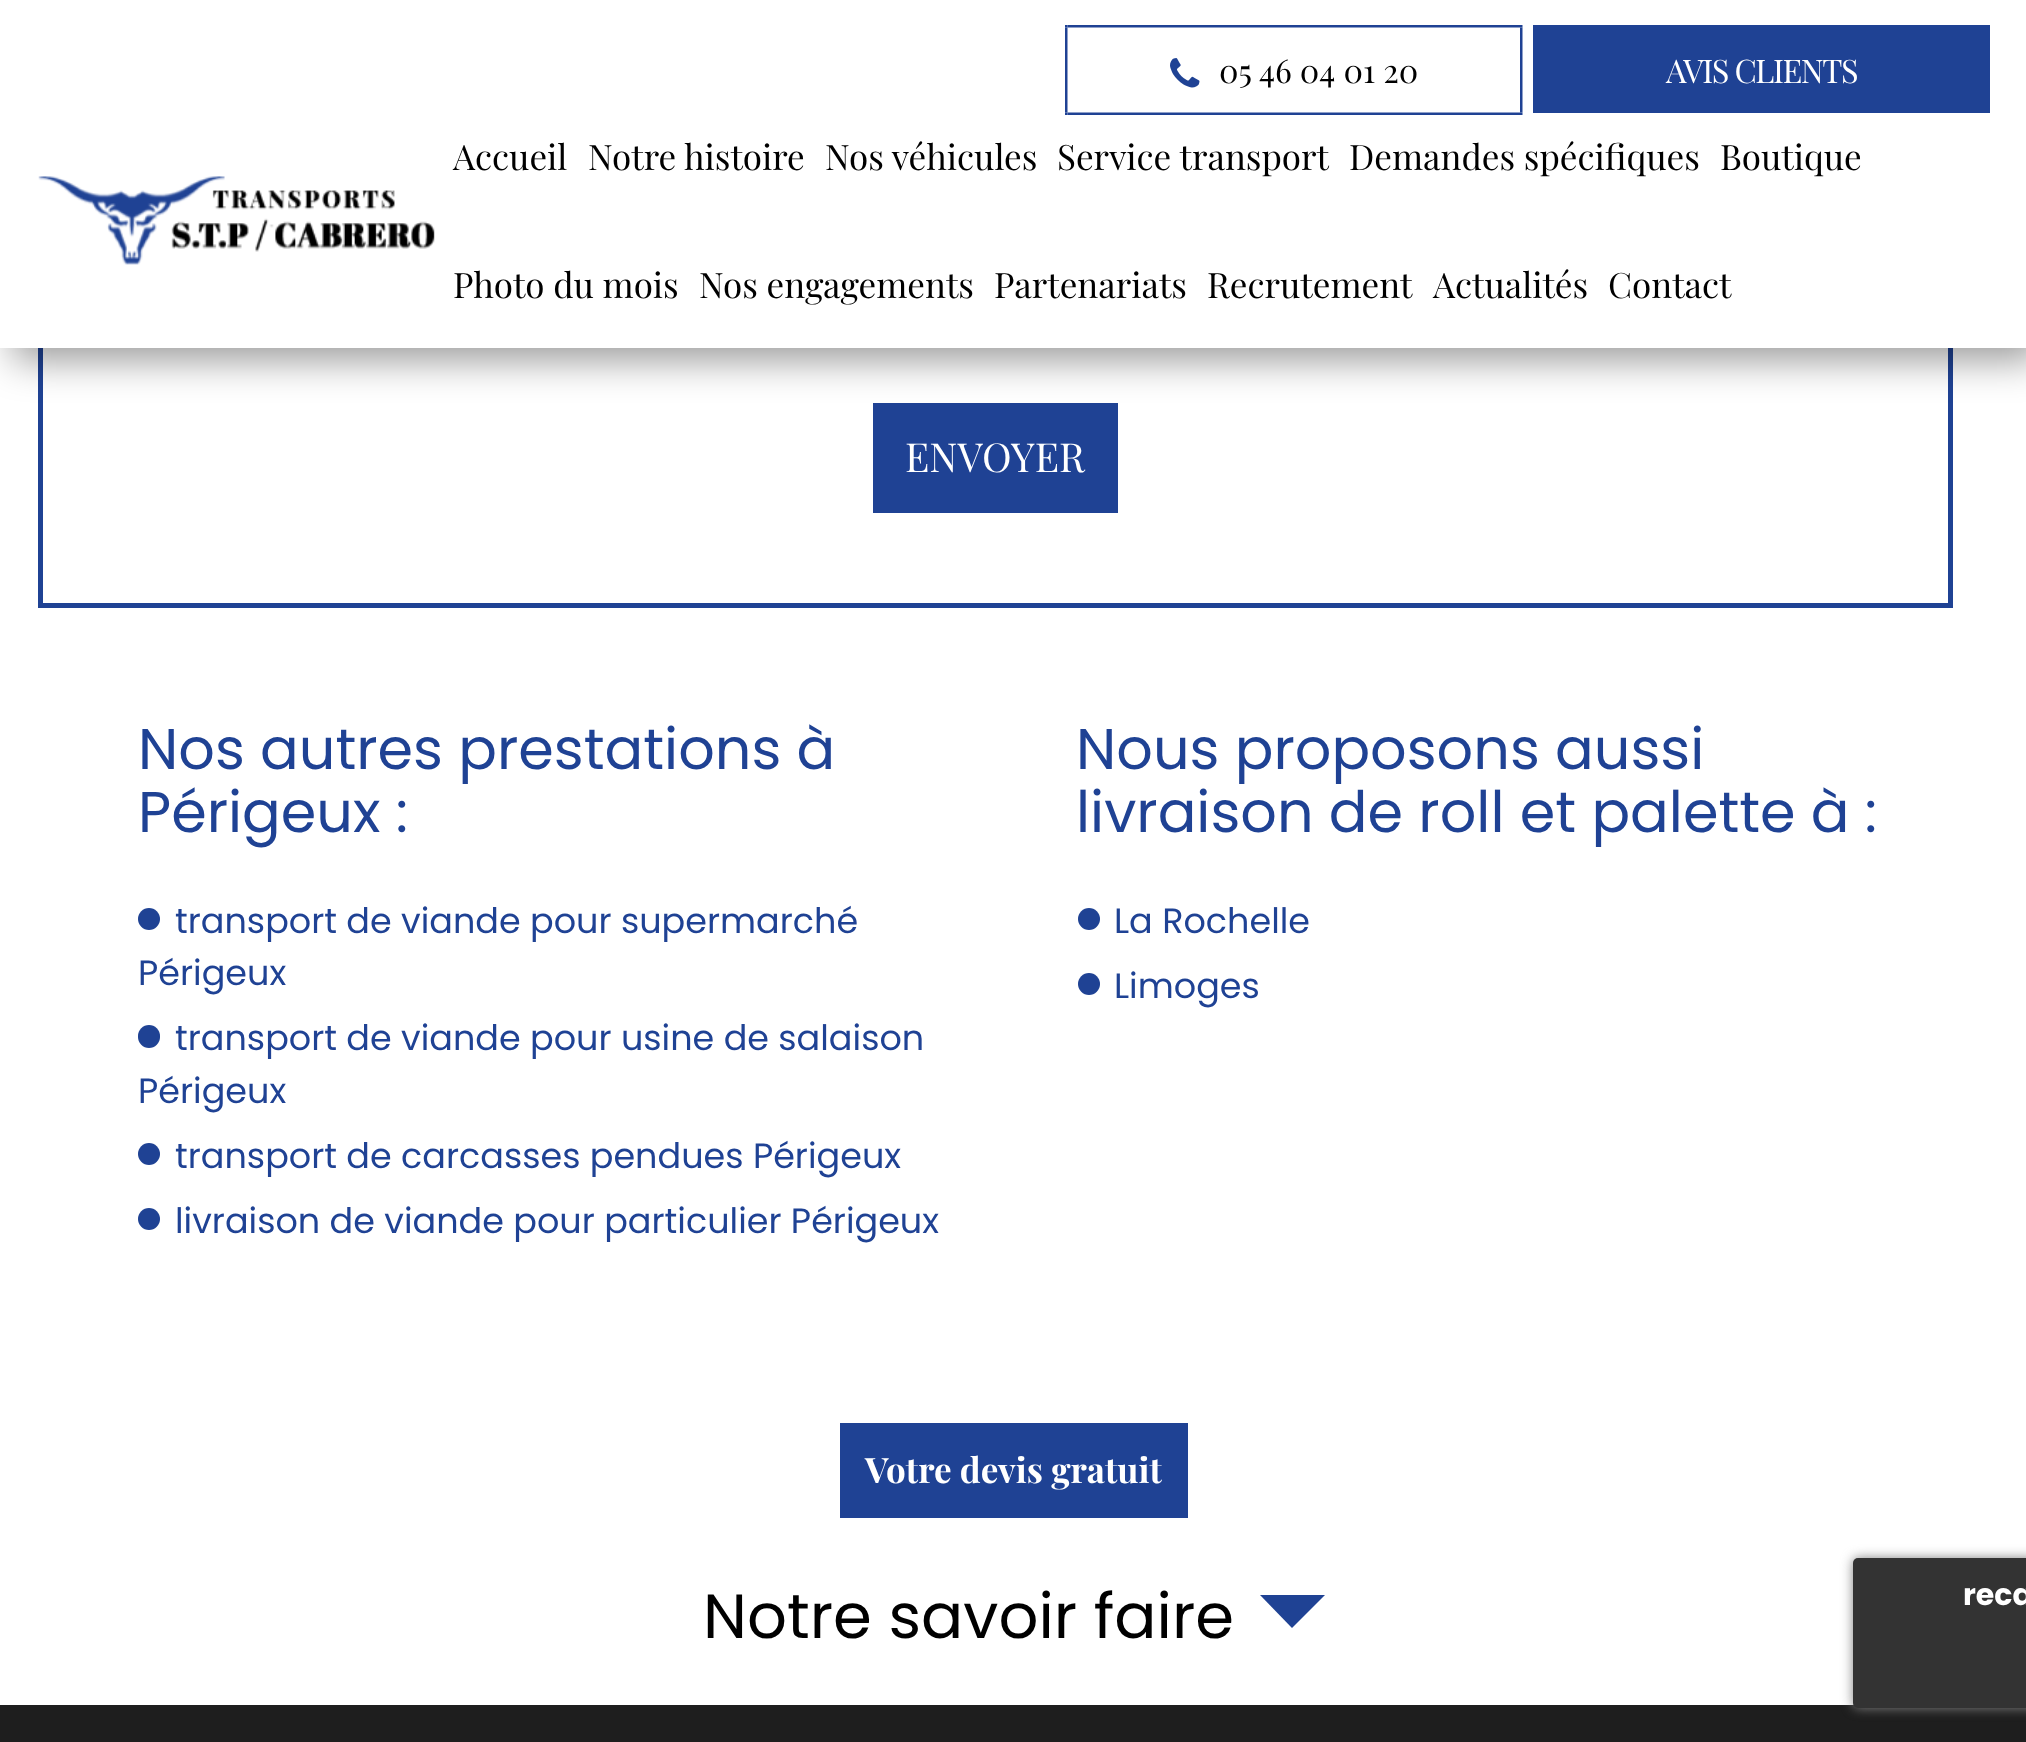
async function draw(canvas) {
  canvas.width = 2026;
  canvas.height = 1742;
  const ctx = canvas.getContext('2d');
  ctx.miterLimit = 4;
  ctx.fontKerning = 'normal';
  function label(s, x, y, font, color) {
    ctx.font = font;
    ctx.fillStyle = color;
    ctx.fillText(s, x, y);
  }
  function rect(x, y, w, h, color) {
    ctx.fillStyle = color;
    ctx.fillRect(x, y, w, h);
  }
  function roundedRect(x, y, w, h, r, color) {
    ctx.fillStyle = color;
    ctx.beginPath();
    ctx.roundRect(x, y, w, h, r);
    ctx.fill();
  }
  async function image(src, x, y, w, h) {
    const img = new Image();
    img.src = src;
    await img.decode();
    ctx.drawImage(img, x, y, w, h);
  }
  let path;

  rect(0, 0, 2026, 1742, '#fff');
  ctx.strokeStyle = '#1f4294';
  ctx.lineWidth = 5;
  ctx.strokeRect(40.5, -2.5, 1910, 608);
  rect(873, 403, 245, 110, '#1f4294');
  ctx.fillStyle = '#00000066';
  ctx.filter = 'blur(19px)';
  ctx.beginPath();
  ctx.rect(13, 13, 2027, 347);
  ctx.fill();
  ctx.filter = 'none';
  rect(0, 0, 2026, 348, '#fff');
  await image('assets/img1.png', 1065, 25, 458, 90);
  await image('assets/img2.png', 1170, 58, 30, 30);
  label('05 46 04 01 20', 1219, 83, '32.5px Playfair Display', '#000');
  rect(1533, 25, 457, 88, '#1f4294');
  ctx.letterSpacing = '-1.5px';
  label('AVIS CLIENTS', 1666, 83, '32.5px Playfair Display', '#fff');
  await image('assets/img3.png', 38, 176, 397, 89);
  ctx.letterSpacing = '0px';
  label('Accueil', 453, 170, '35px Playfair Display', '#000');
  label('Notre histoire', 588, 170, '35px Playfair Display', '#000');
  label('Nos véhicules', 825, 170, '35px Playfair Display', '#000');
  label('Service transport', 1057, 170, '35px Playfair Display', '#000');
  label('Demandes spécifiques', 1349, 170, '35px Playfair Display', '#000');
  label('Boutique', 1720, 170, '35px Playfair Display', '#000');
  label('Photo du mois', 453, 298, '35px Playfair Display', '#000');
  label('Nos engagements', 699, 298, '35px Playfair Display', '#000');
  label('Partenariats', 994, 298, '35px Playfair Display', '#000');
  label('Recrutement', 1207, 298, '35px Playfair Display', '#000');
  label('Actualités', 1433, 298, '35px Playfair Display', '#000');
  label('Contact', 1608, 298, '35px Playfair Display', '#000');
  label('ENVOYER', 905, 472, '40px Playfair Display', '#fff');
  label('Nos autres prestations à', 138, 769, '57.25px Poppins', '#1f4294');
  label('Périgeux :', 138, 832, '57.25px Poppins', '#1f4294');
  ctx.beginPath();
  ctx.arc(149, 919, 11, 0, 2 * Math.PI);
  ctx.fill();
  label('transport de viande pour supermarché', 175, 933, '35px Poppins', '#1f4294');
  label('Périgeux', 138, 985, '35px Poppins', '#1f4294');
  roundedRect(138, 1025, 22, 23, 11, '#1f4294');
  label('transport de viande pour usine de salaison', 175, 1050, '35px Poppins', '#1f4294');
  label('Périgeux', 138, 1103, '35px Poppins', '#1f4294');
  ctx.beginPath();
  ctx.arc(149, 1154, 11, 0, 2 * Math.PI);
  ctx.fill();
  label('transport de carcasses pendues Périgeux', 175, 1168, '35px Poppins', '#1f4294');
  ctx.beginPath();
  ctx.arc(149, 1219, 11, 0, 2 * Math.PI);
  ctx.fill();
  label('livraison de viande pour particulier Périgeux', 175, 1233, '35px Poppins', '#1f4294');
  label('Nous proposons aussi', 1076, 769, '57.25px Poppins', '#1f4294');
  label('livraison de roll et palette à :', 1076, 832, '57.25px Poppins', '#1f4294');
  ctx.beginPath();
  ctx.arc(1089, 919, 11, 0, 2 * Math.PI);
  ctx.fill();
  label('La Rochelle', 1114, 933, '35px Poppins', '#1f4294');
  ctx.beginPath();
  ctx.arc(1089, 984, 11, 0, 2 * Math.PI);
  ctx.fill();
  label('Limoges', 1114, 998, '35px Poppins', '#1f4294');
  rect(840, 1423, 348, 95, '#1f4294');
  label('Votre devis gratuit', 865, 1483, 'bold 35px Playfair Display', '#fff');
  label('Notre savoir faire', 703, 1638, '62.5px Poppins', '#000');
  ctx.fillStyle = '#1f4294';
  path = new Path2D('M1260 1595H1325L1292 1628Z');
  ctx.fill(path);
  rect(0, 1705, 2026, 37, '#1e1e1e');
  ctx.fillStyle = '#808080';
  ctx.filter = 'blur(6px)';
  ctx.beginPath();
  ctx.roundRect(1853, 1558, 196, 150, 5);
  ctx.fill();
  ctx.filter = 'none';
  roundedRect(1853, 1558, 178, 150, 5, '#333');
  label('reca', 1963, 1605, 'bold 30px Poppins', '#fff');
}

draw(document.querySelector('canvas'));
